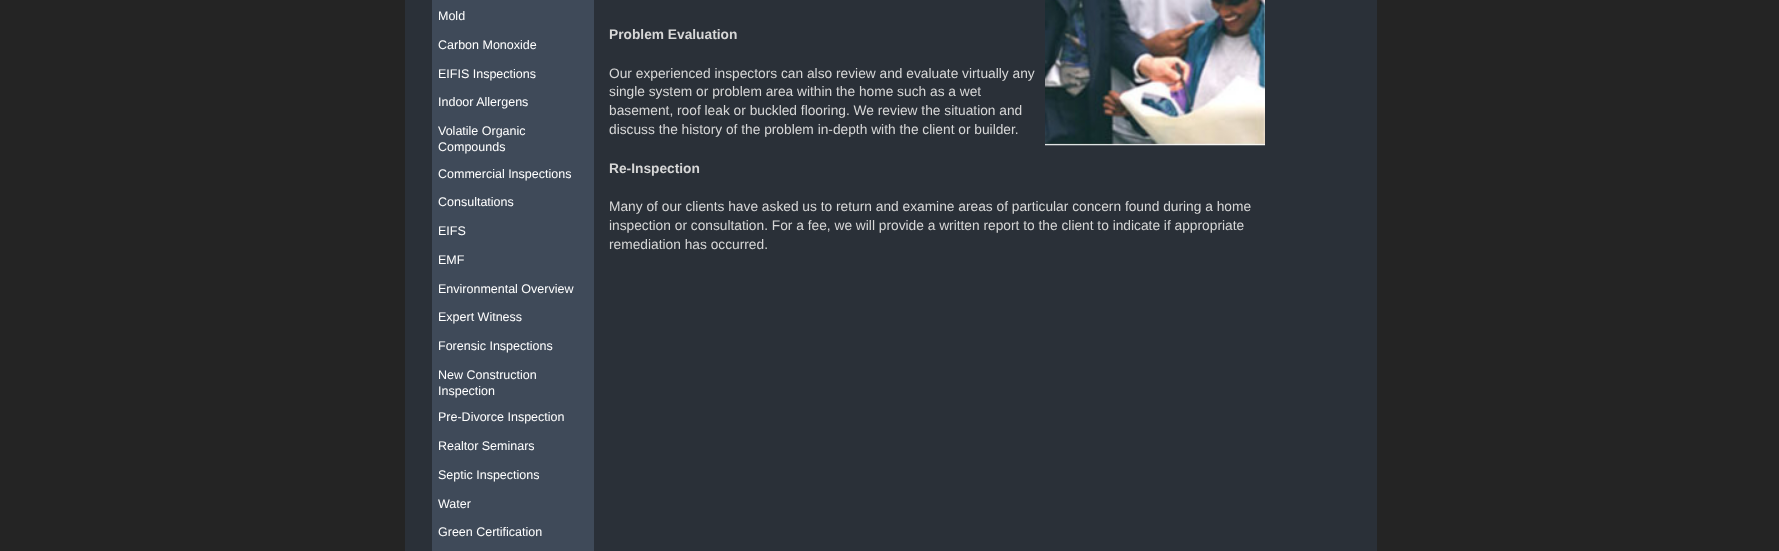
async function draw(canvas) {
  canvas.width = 1779;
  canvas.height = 551;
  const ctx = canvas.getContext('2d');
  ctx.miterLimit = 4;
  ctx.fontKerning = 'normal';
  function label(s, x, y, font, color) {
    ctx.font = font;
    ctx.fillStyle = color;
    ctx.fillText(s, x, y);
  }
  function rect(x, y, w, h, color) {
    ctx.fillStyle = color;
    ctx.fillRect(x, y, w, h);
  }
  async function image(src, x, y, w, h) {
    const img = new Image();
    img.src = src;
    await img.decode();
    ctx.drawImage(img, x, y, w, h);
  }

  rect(0, 0, 1779, 551, '#242424');
  rect(405, 0, 205, 551, '#2a3038');
  rect(432, 0, 162, 551, '#3f4a59');
  label('Mold', 438, 20, '12.5px Liberation Sans', '#fff');
  label('Carbon Monoxide', 438, 49, '12.5px Liberation Sans', '#fff');
  label('EIFIS Inspections', 438, 78, '12.5px Liberation Sans', '#fff');
  label('Indoor Allergens', 438, 106, '12.5px Liberation Sans', '#fff');
  label('Volatile Organic', 438, 135, '12.5px Liberation Sans', '#fff');
  label('Compounds', 438, 151, '12.5px Liberation Sans', '#fff');
  label('Commercial Inspections', 438, 178, '12.5px Liberation Sans', '#fff');
  label('Consultations', 438, 206, '12.5px Liberation Sans', '#fff');
  label('EIFS', 438, 235, '12.5px Liberation Sans', '#fff');
  label('EMF', 438, 264, '12.5px Liberation Sans', '#fff');
  label('Environmental Overview', 438, 293, '12.5px Liberation Sans', '#fff');
  label('Expert Witness', 438, 321, '12.5px Liberation Sans', '#fff');
  label('Forensic Inspections', 438, 350, '12.5px Liberation Sans', '#fff');
  label('New Construction', 438, 379, '12.5px Liberation Sans', '#fff');
  label('Inspection', 438, 395, '12.5px Liberation Sans', '#fff');
  label('Pre-Divorce Inspection', 438, 421, '12.5px Liberation Sans', '#fff');
  label('Realtor Seminars', 438, 450, '12.5px Liberation Sans', '#fff');
  label('Septic Inspections', 438, 479, '12.5px Liberation Sans', '#fff');
  label('Water', 438, 508, '12.5px Liberation Sans', '#fff');
  label('Green Certification', 438, 536, '12.5px Liberation Sans', '#fff');
  rect(610, 0, 767, 551, '#2a3038');
  label('Problem Evaluation', 609, 39, 'bold 13.75px Liberation Sans', '#d7d7d7');
  await image('assets/img1.png', 1045, 0, 220, 146);
  label('Our experienced inspectors can also review and evaluate virtually any', 609, 78, '13.75px Liberation Sans', '#d7d7d7');
  label('single system or problem area within the home such as a wet', 609, 96, '13.75px Liberation Sans', '#d7d7d7');
  label('basement, roof leak or buckled flooring. We review the situation and', 609, 115, '13.75px Liberation Sans', '#d7d7d7');
  label('discuss the history of the problem in-depth with the client or builder.', 609, 134, '13.75px Liberation Sans', '#d7d7d7');
  label('Re-Inspection', 609, 173, 'bold 13.75px Liberation Sans', '#d7d7d7');
  label('Many of our clients have asked us to return and examine areas of particular concern found during a home', 609, 211, '13.75px Liberation Sans', '#d7d7d7');
  label('inspection or consultation. For a fee, we will provide a written report to the client to indicate if appropriate', 609, 230, '13.75px Liberation Sans', '#d7d7d7');
  label('remediation has occurred.', 609, 249, '13.75px Liberation Sans', '#d7d7d7');
}

draw(document.querySelector('canvas'));
